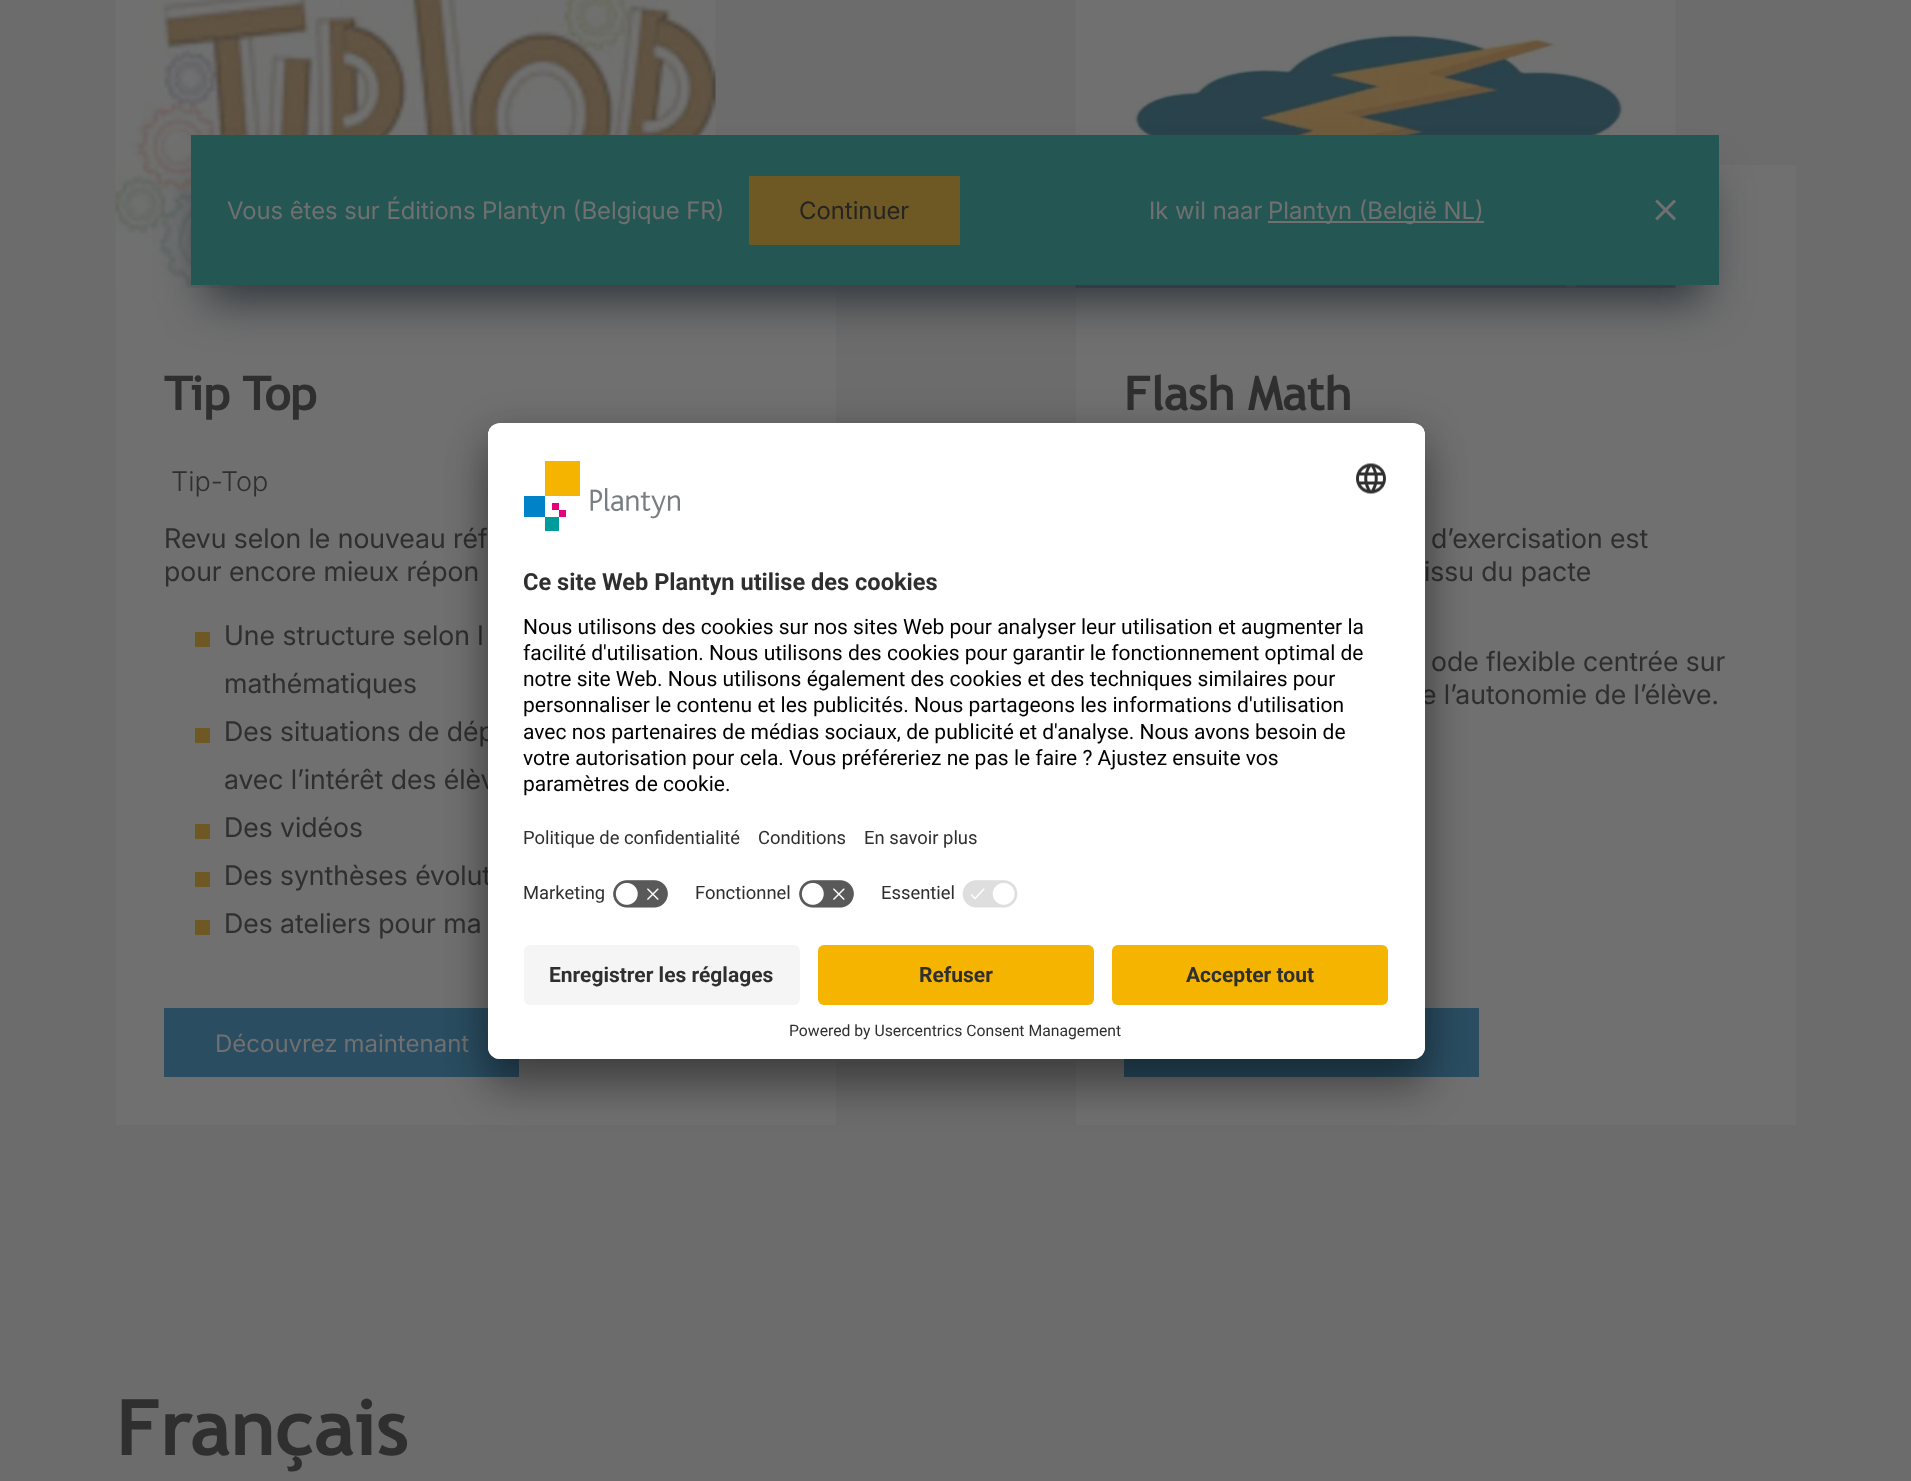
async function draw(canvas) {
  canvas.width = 1911;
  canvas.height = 1481;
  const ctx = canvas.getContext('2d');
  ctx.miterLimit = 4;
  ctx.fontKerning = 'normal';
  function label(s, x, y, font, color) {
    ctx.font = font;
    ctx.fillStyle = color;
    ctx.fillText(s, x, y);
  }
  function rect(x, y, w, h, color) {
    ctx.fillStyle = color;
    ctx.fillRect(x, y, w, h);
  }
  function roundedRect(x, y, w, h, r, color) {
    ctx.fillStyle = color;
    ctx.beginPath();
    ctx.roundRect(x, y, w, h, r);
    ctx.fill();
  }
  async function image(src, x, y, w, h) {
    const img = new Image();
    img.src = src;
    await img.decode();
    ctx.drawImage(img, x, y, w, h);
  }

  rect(0, 0, 1911, 1481, '#6d6c6c');
  rect(116, 285, 720, 840, '#707070');
  await image('assets/img2.png', 115, 0, 601, 288);
  rect(1076, 165, 720, 960, '#707070');
  await image('assets/img3.png', 1075, 0, 601, 288);
  ctx.fillStyle = '#2f353b';
  ctx.filter = 'blur(22.5px)';
  ctx.beginPath();
  ctx.rect(206, 180, 1498, 120);
  ctx.fill();
  ctx.filter = 'none';
  rect(191, 135, 1528, 150, '#245753');
  label('Vous êtes sur Éditions Plantyn (Belgique FR)', 227, 219, '24px "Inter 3"', '#707070');
  rect(749, 176, 211, 69, '#6e5924');
  label('Continuer', 799, 219, '24px "Inter 3"', '#242424');
  label('Ik wil naar', 1149, 219, '24px "Inter 3"', '#707070');
  rect(1268, 221, 216, 2, '#707070');
  label('Plantyn (België NL)', 1268, 219, '24px "Inter 3"', '#707070');
  await image('assets/img1.png', 1655, 199, 21, 22);
  ctx.letterSpacing = '-1.25px';
  label('Tip Top', 164, 410, 'bold 48px Trebuchet MS', '#2f2f2f');
  ctx.letterSpacing = '0px';
  label('Tip-Top', 171, 491, '300 27px Inter', '#2f2f2f');
  label('Revu selon le nouveau réf', 164, 548, '27px "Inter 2"', '#2f2f2f');
  label('pour encore mieux répon', 164, 581, '27px "Inter 2"', '#2f2f2f');
  rect(195, 632, 15, 15, '#6e5924');
  label('Une structure selon l', 224, 645, '27px "Inter 2"', '#2f2f2f');
  label('mathématiques', 224, 693, '27px "Inter 2"', '#2f2f2f');
  rect(195, 728, 15, 15, '#6e5924');
  label('Des situations de dép', 224, 741, '27px "Inter 2"', '#2f2f2f');
  label('avec l’intérêt des élèv', 224, 789, '27px "Inter 2"', '#2f2f2f');
  rect(195, 824, 15, 15, '#6e5924');
  label('Des vidéos', 224, 837, '27px "Inter 2"', '#2f2f2f');
  rect(195, 872, 15, 15, '#6e5924');
  label('Des synthèses évolut', 224, 885, '27px "Inter 2"', '#2f2f2f');
  rect(195, 920, 15, 15, '#6e5924');
  label('Des ateliers pour ma', 224, 933, '27px "Inter 2"', '#2f2f2f');
  rect(164, 1008, 355, 69, '#2a4d61');
  ctx.wordSpacing = '-1px';
  label('Découvrez maintenant', 215, 1052, '24px Inter', '#707070');
  ctx.letterSpacing = '-1.25px';
  ctx.wordSpacing = '0px';
  label('Flash Math', 1124, 410, 'bold 48px Trebuchet MS', '#2f2f2f');
  ctx.letterSpacing = '0px';
  label('d’exercisation est', 1431, 548, '27px "Inter 2"', '#2f2f2f');
  label('issu du pacte', 1424, 581, '27px "Inter 2"', '#2f2f2f');
  label('ode flexible centrée sur', 1431, 671, '27px "Inter 2"', '#2f2f2f');
  label('e l’autonomie de l’élève.', 1421, 704, '27px "Inter 2"', '#2f2f2f');
  rect(1124, 1008, 355, 69, '#2a4d61');
  ctx.letterSpacing = '-1.25px';
  label('Français', 116, 1455, 'bold 78px Trebuchet MS', '#2f2f2f');
  ctx.fillStyle = '#0000004d';
  ctx.filter = 'blur(21px)';
  ctx.beginPath();
  ctx.roundRect(488, 453, 937, 636, 12);
  ctx.fill();
  ctx.filter = 'none';
  ctx.fillStyle = '#00000038';
  ctx.filter = 'blur(19.5px)';
  ctx.beginPath();
  ctx.roundRect(488, 431, 937, 636, 12);
  ctx.fill();
  ctx.filter = 'none';
  roundedRect(488, 423, 937, 636, 12, '#fff');
  ctx.save();
  ctx.beginPath();
  ctx.roundRect(488, 423, 937, 636, 12);
  ctx.clip();
  ctx.beginPath();
  ctx.roundRect(488, 423, 937, 510, [12, 12, 0, 0]);
  ctx.clip();
  rect(488, 425, 937, 508, '#fff');
  rect(488, 425, 937, 448, '#fff');
  ctx.restore();
  await image('assets/img4.png', 524, 461, 156, 70);
  await image('assets/img5.png', 1356, 463, 30, 31);
  ctx.letterSpacing = '0px';
  label('Ce site Web Plantyn utilise des cookies', 523, 590, 'bold 23.6px Roboto', '#2f2f2f');
  label('Nous utilisons des cookies sur nos sites Web pour analyser leur utilisation et augmenter la', 523, 634, '21px Roboto', '#000');
  label('facilité d\'utilisation. Nous utilisons des cookies pour garantir le fonctionnement optimal de', 523, 660, '21px Roboto', '#000');
  label('notre site Web. Nous utilisons également des cookies et des techniques similaires pour', 523, 686, '21px Roboto', '#000');
  label('personnaliser le contenu et les publicités. Nous partageons les informations d\'utilisation', 523, 712, '21px Roboto', '#000');
  label('avec nos partenaires de médias sociaux, de publicité et d\'analyse. Nous avons besoin de', 523, 739, '21px Roboto', '#000');
  label('votre autorisation pour cela. Vous préféreriez ne pas le faire ? Ajustez ensuite vos', 523, 765, '21px Roboto', '#000');
  label('paramètres de cookie.', 523, 791, '21px Roboto', '#000');
  label('Politique de confidentialité', 523, 844, '18.4px Roboto', '#2f2f2f');
  label('Conditions', 758, 844, '18.4px Roboto', '#2f2f2f');
  label('En savoir plus', 864, 844, '18.4px Roboto', '#2f2f2f');
  label('Marketing', 523, 899, '18.4px Roboto', '#2f2f2f');
  await image('assets/img6.png', 613, 880, 55, 28);
  label('Fonctionnel', 695, 899, '18.4px Roboto', '#2f2f2f');
  await image('assets/img6.png', 799, 880, 55, 28);
  label('Essentiel', 881, 899, '18.4px Roboto', '#2f2f2f');
  await image('assets/img7.png', 962, 880, 56, 28);
  ctx.fillStyle = '#fff';
  ctx.beginPath();
  ctx.roundRect(488, 933, 937, 126, [0, 0, 12, 12]);
  ctx.fill();
  roundedRect(524, 945, 276, 60, 6, '#f5f5f5');
  label('Enregistrer les réglages', 549, 982, 'bold 21px Roboto', '#2f2f2f');
  roundedRect(818, 945, 276, 60, 6, '#f5b400');
  label('Refuser', 919, 982, 'bold 21px Roboto', '#2f2f2f');
  roundedRect(1112, 945, 276, 60, 6, '#f5b400');
  label('Accepter tout', 1186, 982, 'bold 21px Roboto', '#2f2f2f');
  label('Powered by Usercentrics Consent Management', 789, 1036, '15.75px Roboto', '#2f2f2f');
}

draw(document.querySelector('canvas'));
